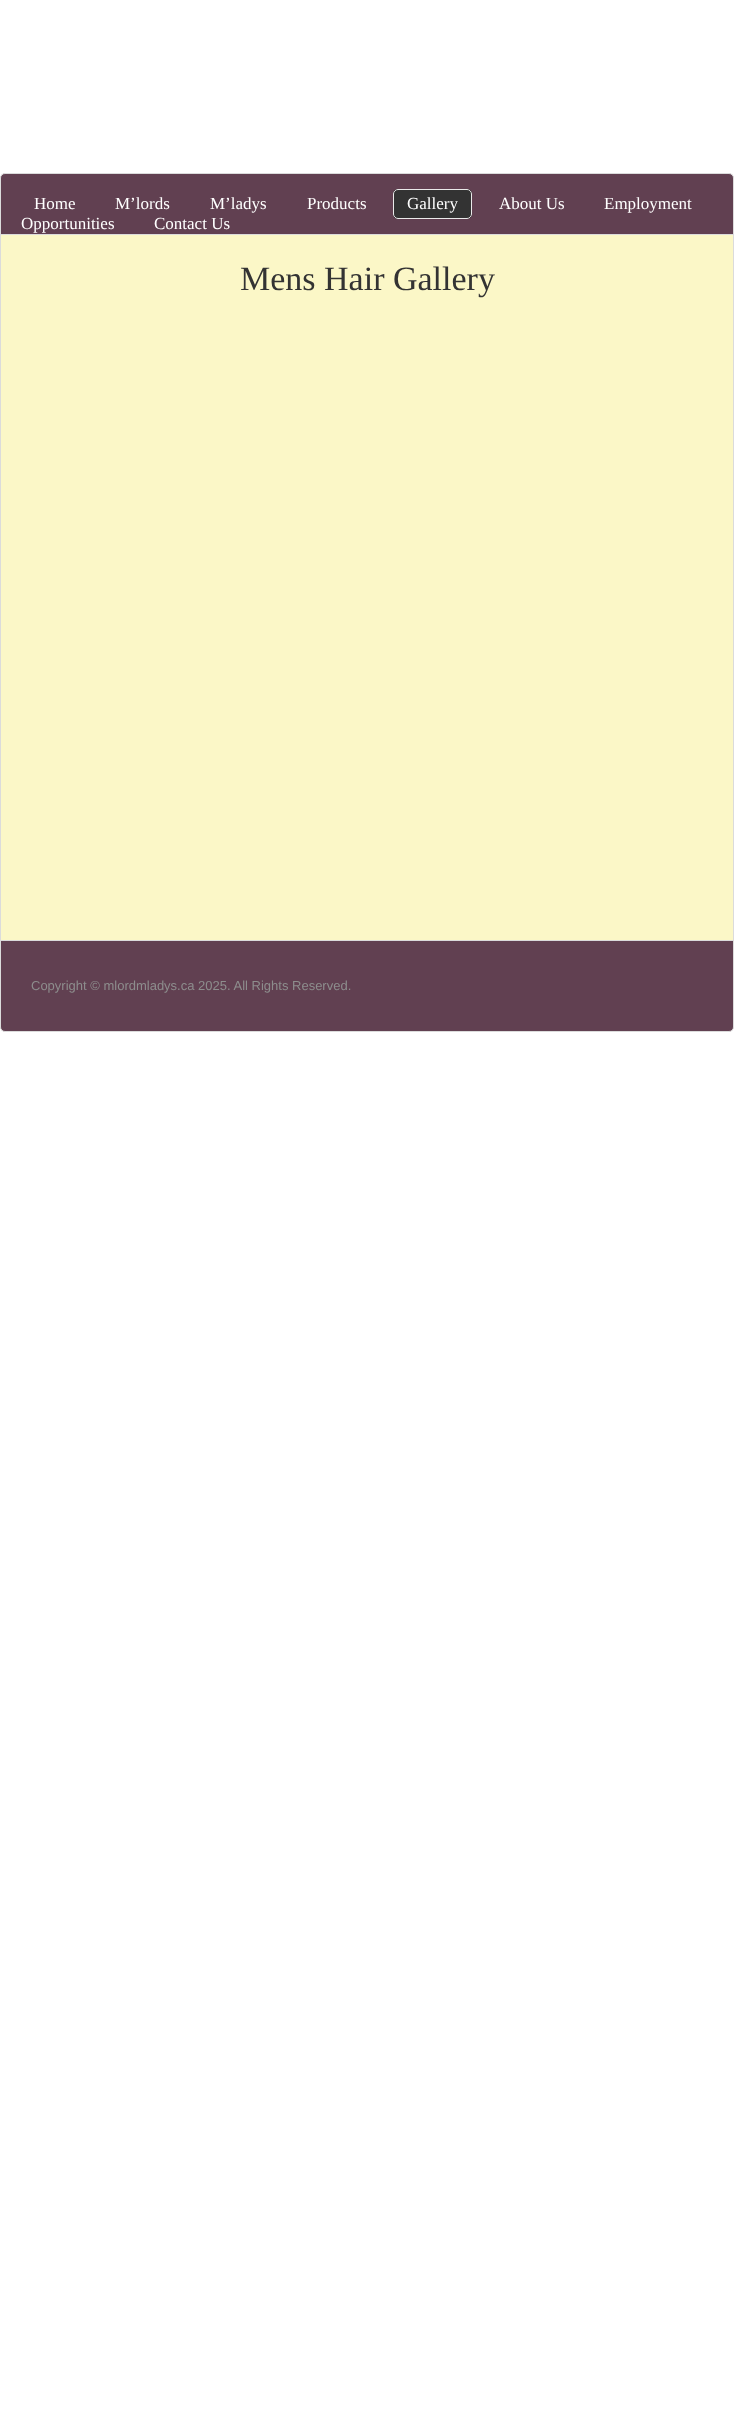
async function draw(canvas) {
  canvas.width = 734;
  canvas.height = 2424;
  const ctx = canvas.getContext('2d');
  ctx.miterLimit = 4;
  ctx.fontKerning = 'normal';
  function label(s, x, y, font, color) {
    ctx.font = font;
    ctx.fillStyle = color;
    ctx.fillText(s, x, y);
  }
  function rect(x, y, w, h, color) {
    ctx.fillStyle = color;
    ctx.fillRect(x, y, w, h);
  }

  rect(0, 0, 734, 2424, '#fff');
  ctx.fillStyle = '#614051';
  ctx.beginPath();
  ctx.roundRect(0.5, 173.5, 733, 61, [4.5, 4.5, 0, 0]);
  ctx.fill();
  ctx.strokeStyle = '#dbdbdb';
  ctx.stroke();
  label('Home', 34, 209, '17px Liberation Serif', '#fff');
  label('M’lords', 115, 209, '17px Liberation Serif', '#fff');
  label('M’ladys', 210, 209, '17px Liberation Serif', '#fff');
  label('Products', 307, 209, '17px Liberation Serif', '#fff');
  ctx.fillStyle = '#000';
  ctx.filter = 'blur(0.5px)';
  ctx.beginPath();
  ctx.roundRect(393, 189, 79, 30, 5);
  ctx.fill();
  ctx.filter = 'none';
  ctx.fillStyle = '#333';
  ctx.beginPath();
  ctx.roundRect(393.5, 189.5, 78, 29, 4.5);
  ctx.fill();
  ctx.strokeStyle = '#eaeaea';
  ctx.stroke();
  label('Gallery', 407, 209, '17px Liberation Serif', '#fff');
  label('About Us', 499, 209, '17px Liberation Serif', '#fff');
  label('Employment', 604, 209, '17px Liberation Serif', '#fff');
  label('Opportunities', 21, 229, '17px Liberation Serif', '#fff');
  label('Contact Us', 154, 229, '17px Liberation Serif', '#fff');
  rect(1, 235, 732, 705, '#fbf7c7');
  rect(733, 235, 1, 705, '#dbdbdb');
  rect(0, 235, 1, 705, '#dbdbdb');
  label('Mens Hair Gallery', 240, 290, '34px Liberation Serif', '#333');
  ctx.fillStyle = '#614051';
  ctx.beginPath();
  ctx.roundRect(0.5, 940.5, 733, 91, [0, 0, 4.5, 4.5]);
  ctx.fill();
  ctx.strokeStyle = '#dbdbdb';
  ctx.stroke();
  label('Copyright © mlordmladys.ca 2025. All Rights Reserved.', 31, 990, '13px Liberation Sans', '#8d8d8d');
}

draw(document.querySelector('canvas'));
